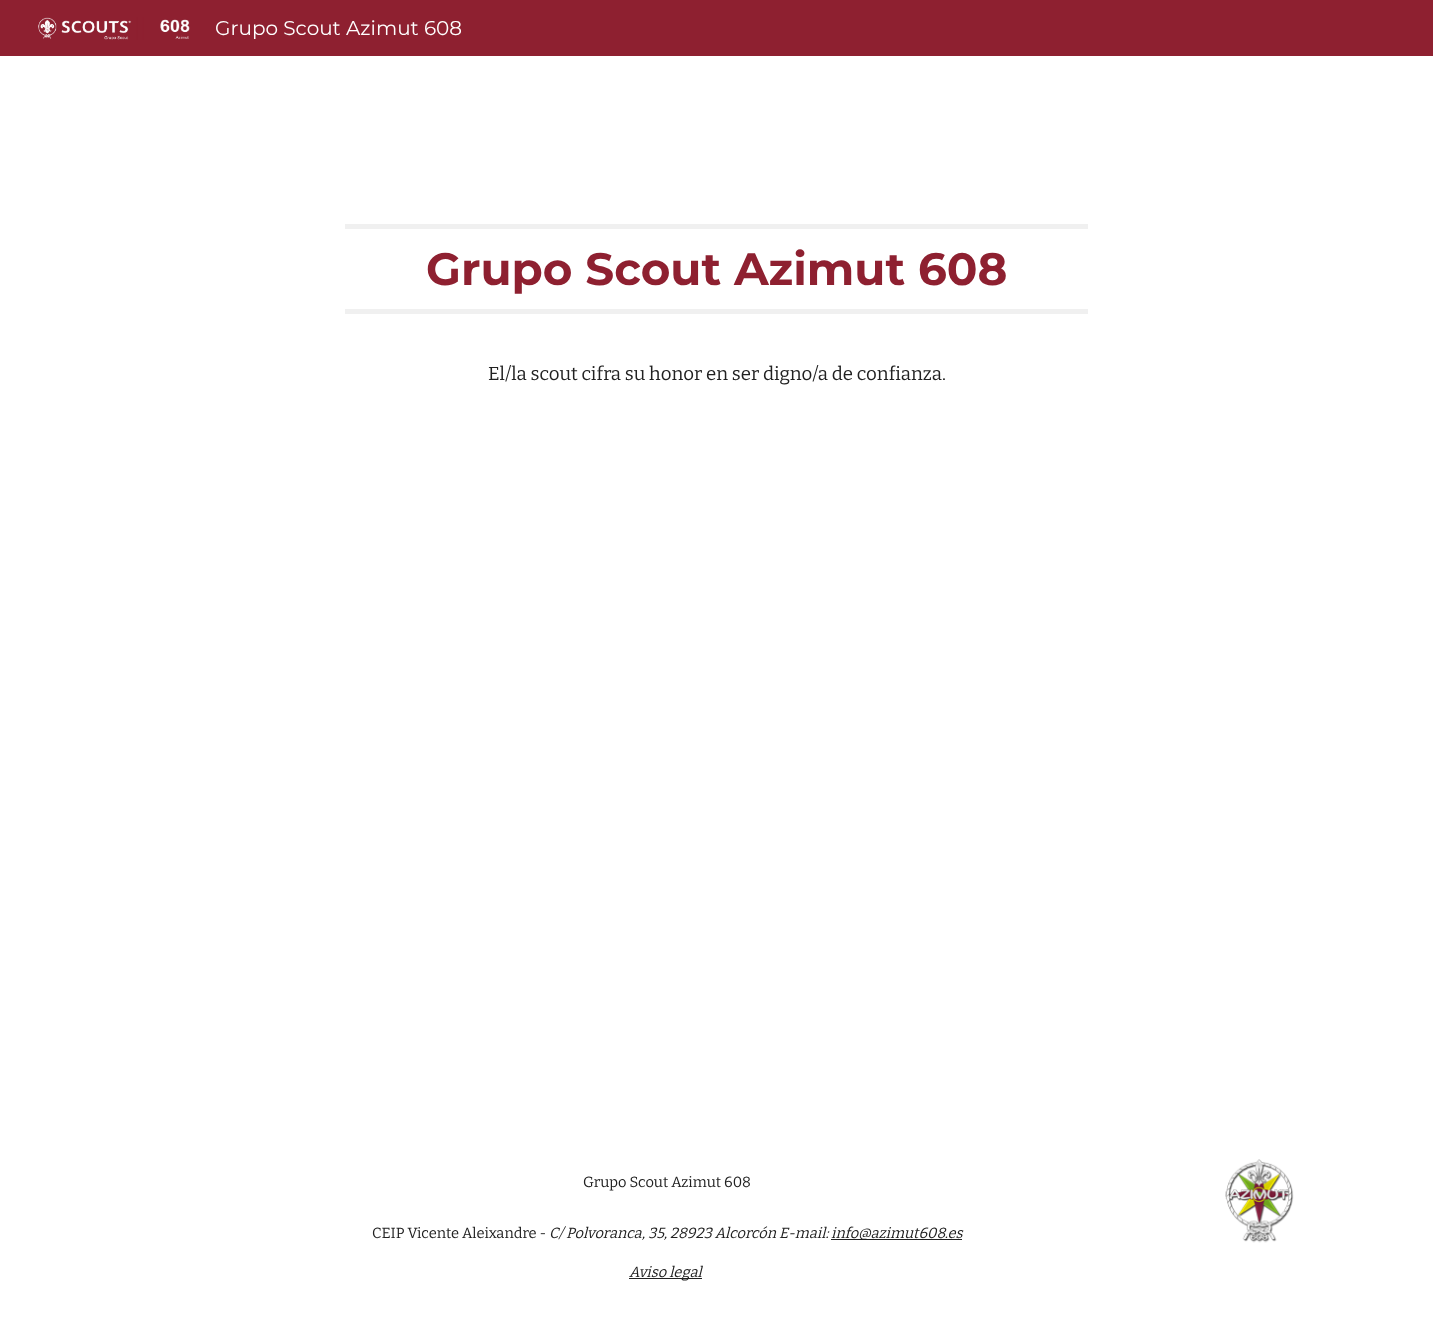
async function draw(canvas) {
  canvas.width = 1433;
  canvas.height = 1322;
  const ctx = canvas.getContext('2d');
  ctx.miterLimit = 4;
  ctx.fontKerning = 'normal';
  function label(s, x, y, font, color) {
    ctx.font = font;
    ctx.fillStyle = color;
    ctx.fillText(s, x, y);
  }
  function rect(x, y, w, h, color) {
    ctx.fillStyle = color;
    ctx.fillRect(x, y, w, h);
  }
  async function image(src, x, y, w, h) {
    const img = new Image();
    img.src = src;
    await img.decode();
    ctx.drawImage(img, x, y, w, h);
  }

  rect(0, 0, 1433, 1322, '#fff');
  rect(0, 0, 1433, 56, '#8e2030');
  await image('assets/img1.png', 38, 17, 152, 23);
  label('Grupo Scout Azimut 608', 215, 35, '20px Montserrat', '#fff');
  rect(345, 224, 743, 5, '#f0f0f0');
  rect(345, 309, 743, 5, '#f0f0f0');
  label('Grupo Scout Azimut 608', 426, 285, 'bold 45.3px Montserrat', '#8e2030');
  label('El/la scout cifra su honor en ser digno/a de confianza.', 488, 380, '18.7px Bitter', '#212121');
  label('Grupo Scout Azimut 608', 583, 1187, '14.7px Bitter', '#212121');
  label('CEIP Vicente Aleixandre -', 372, 1238, '14.7px Bitter', '#212121');
  label('C/ Polvoranca, 35, 28923 Alcorcón E-mail:', 549, 1238, 'italic 14.7px Bitter', '#212121');
  rect(831, 1239, 131, 1, '#212121');
  label('info@azimut608.es', 831, 1238, 'italic 14.7px Bitter', '#212121');
  rect(629, 1278, 73, 1, '#212121');
  label('Aviso legal', 629, 1277, 'italic 14.7px Bitter', '#212121');
  await image('assets/img2.png', 1225, 1159, 69, 84);
}

draw(document.querySelector('canvas'));
